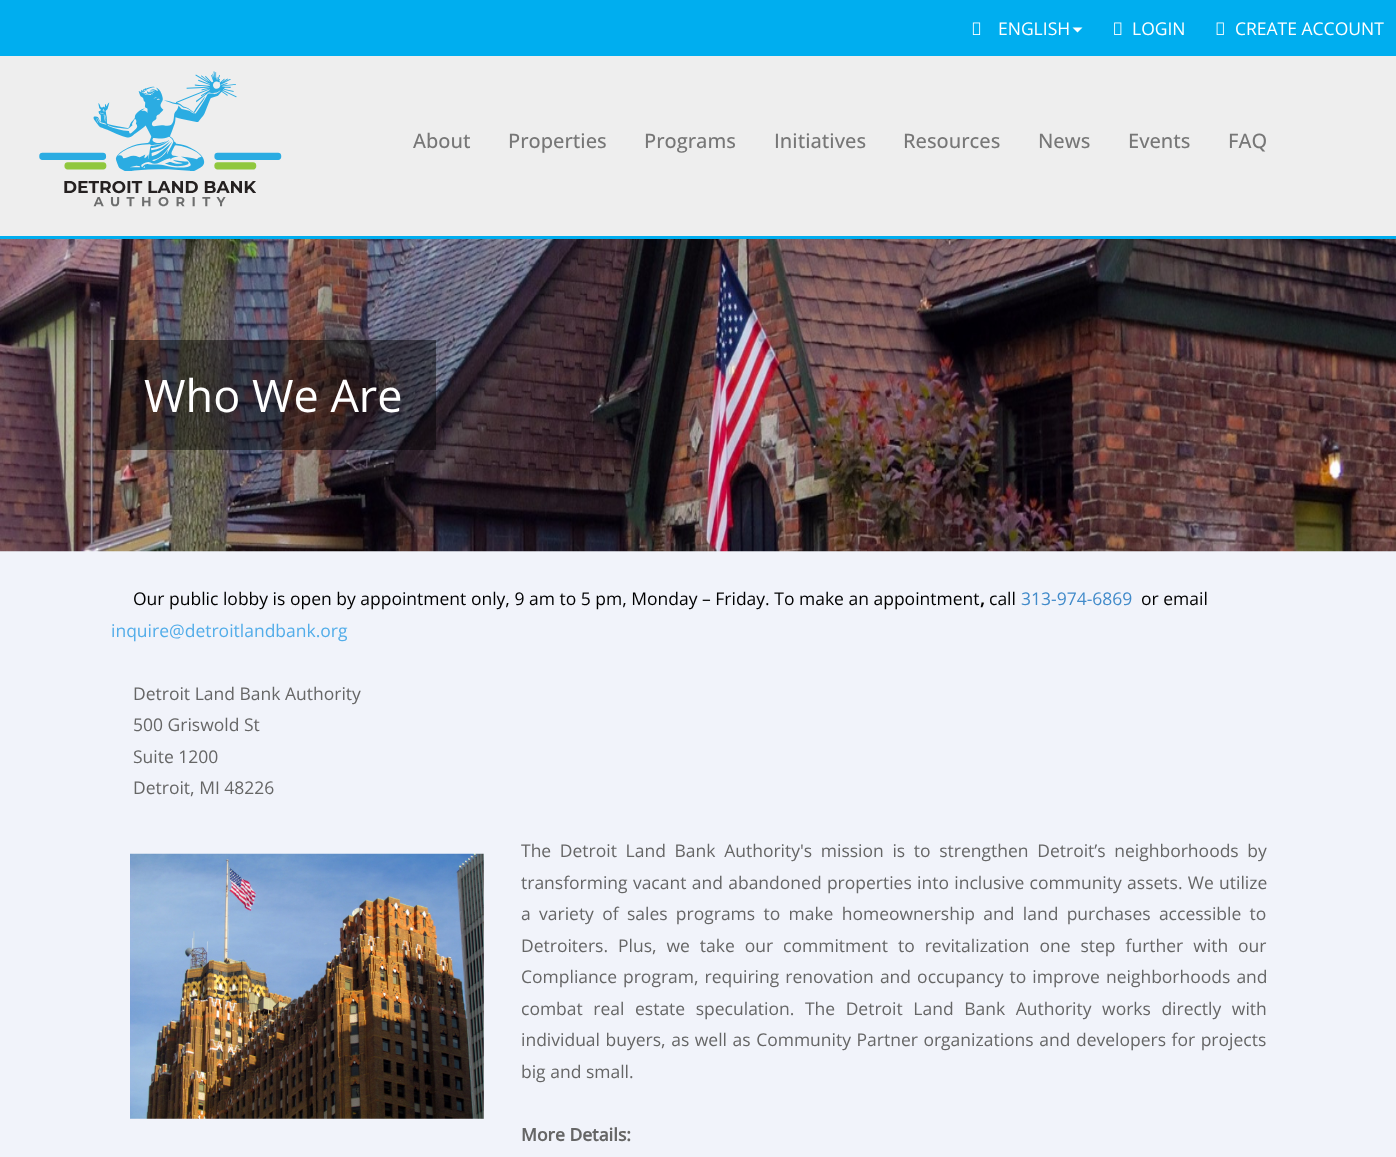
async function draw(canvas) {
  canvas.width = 1396;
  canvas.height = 1157;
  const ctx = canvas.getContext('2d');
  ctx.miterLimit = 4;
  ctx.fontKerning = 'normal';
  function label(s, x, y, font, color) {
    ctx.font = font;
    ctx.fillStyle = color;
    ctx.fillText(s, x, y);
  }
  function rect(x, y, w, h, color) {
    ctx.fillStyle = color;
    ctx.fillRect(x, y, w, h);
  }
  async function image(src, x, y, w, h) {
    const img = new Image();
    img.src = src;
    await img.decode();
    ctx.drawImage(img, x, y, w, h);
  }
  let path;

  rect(0, 0, 1396, 1157, '#f1f3fa');
  rect(0, 0, 1396, 56, '#00aeef');
  await image('assets/img1.png', 972, 22, 9, 13);
  label('ENGLISH', 998, 35, '17.5px Open Sans', '#fff');
  path = new Path2D('M1072.5 27.5H1082.5L1077.5 32.5Z');
  ctx.fill(path);
  await image('assets/img2.png', 1114, 22, 8, 13);
  label('LOGIN', 1132, 35, '17.5px Open Sans', '#fff');
  await image('assets/img3.png', 1216, 22, 8, 13);
  label('CREATE ACCOUNT', 1235, 35, '17.5px Open Sans', '#fff');
  rect(0, 56, 1396, 180, '#eee');
  rect(0, 236, 1396, 3, '#00aeef');
  await image('assets/img4.png', 39, 71, 243, 136);
  label('About', 413, 148, '500 20px Open Sans', '#777');
  label('Properties', 508, 148, '500 20px Open Sans', '#777');
  label('Programs', 644, 148, '500 20px Open Sans', '#777');
  label('Initiatives', 774, 148, '500 20px Open Sans', '#777');
  label('Resources', 903, 148, '500 20px Open Sans', '#777');
  label('News', 1038, 148, '500 20px Open Sans', '#777');
  label('Events', 1128, 148, '500 20px Open Sans', '#777');
  label('FAQ', 1228, 148, '500 20px Open Sans', '#777');
  await image('assets/img5.png', 0, 239, 1396, 313);
  rect(111, 340, 325, 110, '#00000073');
  label('Who We Are', 144, 412, '45px Open Sans', '#fff');
  label('Our public lobby is open by appointment only, 9 am to 5 pm, Monday – Friday. To make an appointment', 133, 605, '17.5px Open Sans', '#000');
  label(',', 980, 605, 'bold 17.5px Open Sans', '#000');
  label('call', 989, 605, '17.5px Open Sans', '#000');
  label('313-974-6869', 1021, 605, '17.5px Open Sans', '#428bca');
  label('or email', 1141, 605, '17.5px Open Sans', '#000');
  label('inquire@detroitlandbank.org', 111, 637, '17.5px Open Sans', '#53ade9');
  label('Detroit Land Bank Authority', 133, 700, '17.5px Open Sans', '#666');
  label('500 Griswold St', 133, 731, '17.5px Open Sans', '#666');
  label('Suite 1200', 133, 763, '17.5px Open Sans', '#666');
  label('Detroit, MI 48226', 133, 794, '17.5px Open Sans', '#666');
  await image('assets/img6.png', 130, 853, 354, 266);
  ctx.wordSpacing = '4.1px';
  label('The Detroit Land Bank Authority\'s mission is to strengthen Detroit’s neighborhoods by', 521, 857, '17.5px Open Sans', '#666');
  ctx.wordSpacing = '0.75px';
  label('transforming vacant and abandoned properties into inclusive community assets. We utilize', 521, 889, '17.5px Open Sans', '#666');
  ctx.wordSpacing = '3.75px';
  label('a variety of sales programs to make homeownership and land purchases accessible to', 521, 920, '17.5px Open Sans', '#666');
  ctx.wordSpacing = '5.4px';
  label('Detroiters. Plus, we take our commitment to revitalization one step further with our', 521, 952, '17.5px Open Sans', '#666');
  ctx.wordSpacing = '1.5px';
  label('Compliance program, requiring renovation and occupancy to improve neighborhoods and', 521, 983, '17.5px Open Sans', '#666');
  ctx.wordSpacing = '6px';
  label('combat real estate speculation. The Detroit Land Bank Authority works directly with', 521, 1015, '17.5px Open Sans', '#666');
  ctx.wordSpacing = '1px';
  label('individual buyers, as well as Community Partner organizations and developers for projects', 521, 1046, '17.5px Open Sans', '#666');
  ctx.wordSpacing = '0px';
  label('big and small.', 521, 1078, '17.5px Open Sans', '#666');
  label('More Details:', 521, 1141, 'bold 17.5px Open Sans', '#666');
}

draw(document.querySelector('canvas'));
